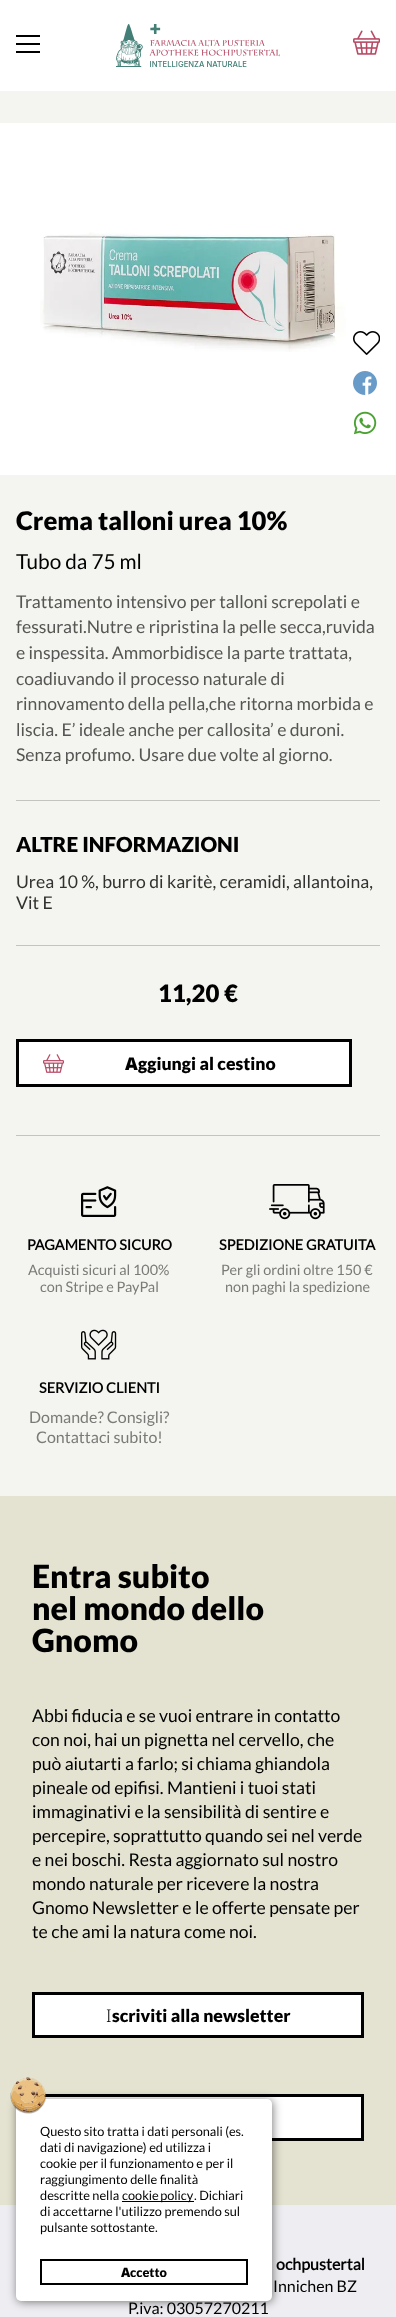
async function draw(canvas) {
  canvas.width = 396;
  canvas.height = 2317;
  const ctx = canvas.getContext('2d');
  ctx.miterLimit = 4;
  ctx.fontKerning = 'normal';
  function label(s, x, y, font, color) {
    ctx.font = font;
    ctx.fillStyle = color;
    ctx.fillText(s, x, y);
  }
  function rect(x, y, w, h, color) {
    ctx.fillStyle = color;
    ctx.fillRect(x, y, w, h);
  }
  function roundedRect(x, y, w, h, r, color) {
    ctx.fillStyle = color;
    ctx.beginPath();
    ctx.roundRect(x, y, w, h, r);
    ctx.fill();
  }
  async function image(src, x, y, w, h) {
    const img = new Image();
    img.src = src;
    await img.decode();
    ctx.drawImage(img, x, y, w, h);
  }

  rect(0, 0, 396, 2317, '#fff');
  rect(16, 35, 24, 2, '#000');
  rect(16, 43, 24, 2, '#000');
  rect(16, 51, 24, 2, '#000');
  await image('assets/img1.png', 116, 24, 164, 43);
  await image('assets/img2.png', 353, 30, 27, 25);
  rect(0, 91, 396, 1405, '#f4f4f0');
  rect(0, 123, 396, 352, '#fff');
  await image('assets/img3.png', 40, 232, 306, 120);
  await image('assets/img4.png', 353, 331, 27, 24);
  await image('assets/img5.png', 353, 371, 24, 24);
  await image('assets/img6.png', 353, 411, 24, 24);
  label('Crema talloni urea 10%', 16, 530, '900 25.6px Lato', '#000');
  label('Tubo da 75 ml', 16, 569, '20.75px Lato', '#000');
  label('Trattamento intensivo per talloni screpolati e', 16, 608, '17.6px Lato', '#555554');
  label('fessurati.Nutre e ripristina la pelle secca,ruvida', 16, 633, '17.6px Lato', '#555554');
  label('e inspessita. Ammorbidisce la parte trattata,', 16, 659, '17.6px Lato', '#555554');
  label('coadiuvando il processo naturale di', 16, 685, '17.6px Lato', '#555554');
  label('rinnovamento della pella,che ritorna morbida e', 16, 710, '17.6px Lato', '#555554');
  label('liscia. E’ ideale anche per callosita’ e duroni.', 16, 736, '17.6px Lato', '#555554');
  label('Senza profumo. Usare due volte al giorno.', 16, 761, '17.6px Lato', '#555554');
  rect(16, 800, 364, 1, '#c3c3c0');
  label('ALTRE INFORMAZIONI', 16, 852, '900 20.75px Lato', '#000');
  label('Urea 10 %, burro di karitè, ceramidi, allantoina,', 16, 888, '17.6px Lato', '#313130');
  label('Vit E', 16, 909, '17.6px Lato', '#313130');
  rect(16, 945, 364, 1, '#c3c3c0');
  rect(16, 1135, 364, 1, '#c3c3c0');
  label('11,20 €', 158, 1002, '900 24px Lato', '#000');
  rect(19, 1042, 330, 42, '#fff');
  await image('assets/img7.png', 43, 1054, 21, 19);
  ctx.strokeStyle = '#000';
  ctx.lineWidth = 3;
  ctx.strokeRect(17.5, 1040.5, 333, 45);
  label('A', 125, 1070, '900 17.6px Noto Sans', '#000');
  label('ggiungi al cestino', 138, 1070, '900 17.6px Lato', '#000');
  await image('assets/img8.png', 81, 1186, 36, 31);
  label('PAGAMENTO SICURO', 27, 1250, 'bold 14.4px Lato', '#000');
  label('Acquisti sicuri al 100%', 28, 1275, '14.4px Lato', '#7a7a78');
  label('con Stripe e PayPal', 40, 1292, '14.4px Lato', '#7a7a78');
  await image('assets/img9.png', 269, 1184, 56, 36);
  label('SPEDIZIONE GRATUITA', 219, 1250, 'bold 14.4px Lato', '#000');
  label('Per gli ordini oltre 150 €', 221, 1275, '14.4px Lato', '#7a7a78');
  label('non paghi la spedizione', 225, 1292, '14.4px Lato', '#7a7a78');
  await image('assets/img10.png', 81, 1329, 36, 31);
  label('SERVIZIO CLIENTI', 39, 1393, 'bold 14.4px Lato', '#000');
  label('Domande? Consigli?', 29, 1423, '16px Lato', '#7a7a78');
  label('Contattaci subito!', 36, 1443, '16px Lato', '#7a7a78');
  rect(0, 1496, 396, 709, '#e4e2d0');
  label('Entra subito', 32, 1588, '900 32px Lato', '#000');
  label('nel mondo dello', 32, 1620, '900 32px Lato', '#000');
  label('Gnomo', 32, 1652, '900 32px Lato', '#000');
  label('Abbi fiducia e se vuoi entrare in contatto', 32, 1722, '17.6px Lato', '#000');
  label('con noi, hai un pignetta nel cervello, che', 32, 1746, '17.6px Lato', '#000');
  label('può aiutarti a farlo; si chiama ghiandola', 32, 1770, '17.6px Lato', '#000');
  label('pineale od epifisi. Mantieni i tuoi stati', 32, 1794, '17.6px Lato', '#000');
  label('immaginativi e la sensibilità di sentire e', 32, 1818, '17.6px Lato', '#000');
  label('percepire, soprattutto quando sei nel verde', 32, 1842, '17.6px Lato', '#000');
  label('e nei boschi. Resta aggiornato sul nostro', 32, 1866, '17.6px Lato', '#000');
  label('mondo naturale per ricevere la nostra', 32, 1890, '17.6px Lato', '#000');
  label('Gnomo Newsletter e le offerte pensate per', 32, 1914, '17.6px Lato', '#000');
  label('te che ami la natura come noi.', 32, 1938, '17.6px Lato', '#000');
  ctx.fillStyle = '#fff';
  ctx.beginPath();
  ctx.rect(33.5, 1993.5, 329, 43);
  ctx.fill();
  ctx.stroke();
  label('I', 106, 2022, '300 17.6px Noto Sans', '#000');
  label('scriviti alla newsletter', 112, 2022, '900 17.6px Lato', '#000');
  ctx.fillStyle = '#fff';
  ctx.beginPath();
  ctx.rect(33.5, 2095.5, 329, 44);
  ctx.fill();
  ctx.stroke();
  rect(0, 2205, 396, 112, '#eeeef2');
  ctx.fillStyle = '#00000080';
  ctx.filter = 'blur(5px)';
  ctx.beginPath();
  ctx.roundRect(17, 2100, 256, 202, 5);
  ctx.fill();
  ctx.filter = 'none';
  roundedRect(16, 2099, 256, 202, 5, '#fff');
  await image('assets/img11.png', 10, 2077, 36, 37);
  label('Questo sito tratta i dati personali (es.', 40, 2136, '12.75px Lato', '#000');
  label('dati di navigazione) ed utilizza i', 40, 2152, '12.75px Lato', '#000');
  label('cookie per il funzionamento e per il', 40, 2168, '12.75px Lato', '#000');
  label('raggiungimento delle finalità', 40, 2184, '12.75px Lato', '#000');
  label('descritte nella', 40, 2200, '12.75px Lato', '#000');
  rect(122, 2201, 72, 1, '#000');
  ctx.wordSpacing = '-1px';
  label('cookie policy', 122, 2200, '12.75px Lato', '#000');
  ctx.wordSpacing = '0px';
  label('. Dichiari', 194, 2200, '12.75px Lato', '#000');
  label('di accettarne l\'utilizzo premendo sul', 40, 2216, '12.75px Lato', '#000');
  label('pulsante sottostante.', 40, 2232, '12.75px Lato', '#000');
  ctx.lineWidth = 2;
  ctx.strokeRect(41, 2260, 206, 24);
  label('A', 121, 2277, '900 12.75px Noto Sans', '#000');
  label('ccetto', 130, 2277, '900 12.75px Lato', '#000');
  label('ochpustertal', 276, 2270, 'bold 16px Lato', '#000');
  label('Innichen BZ', 273, 2292, '16px Lato', '#000');
  label('P.iva: 03057270211', 128, 2314, '16px Lato', '#000');
}

draw(document.querySelector('canvas'));
